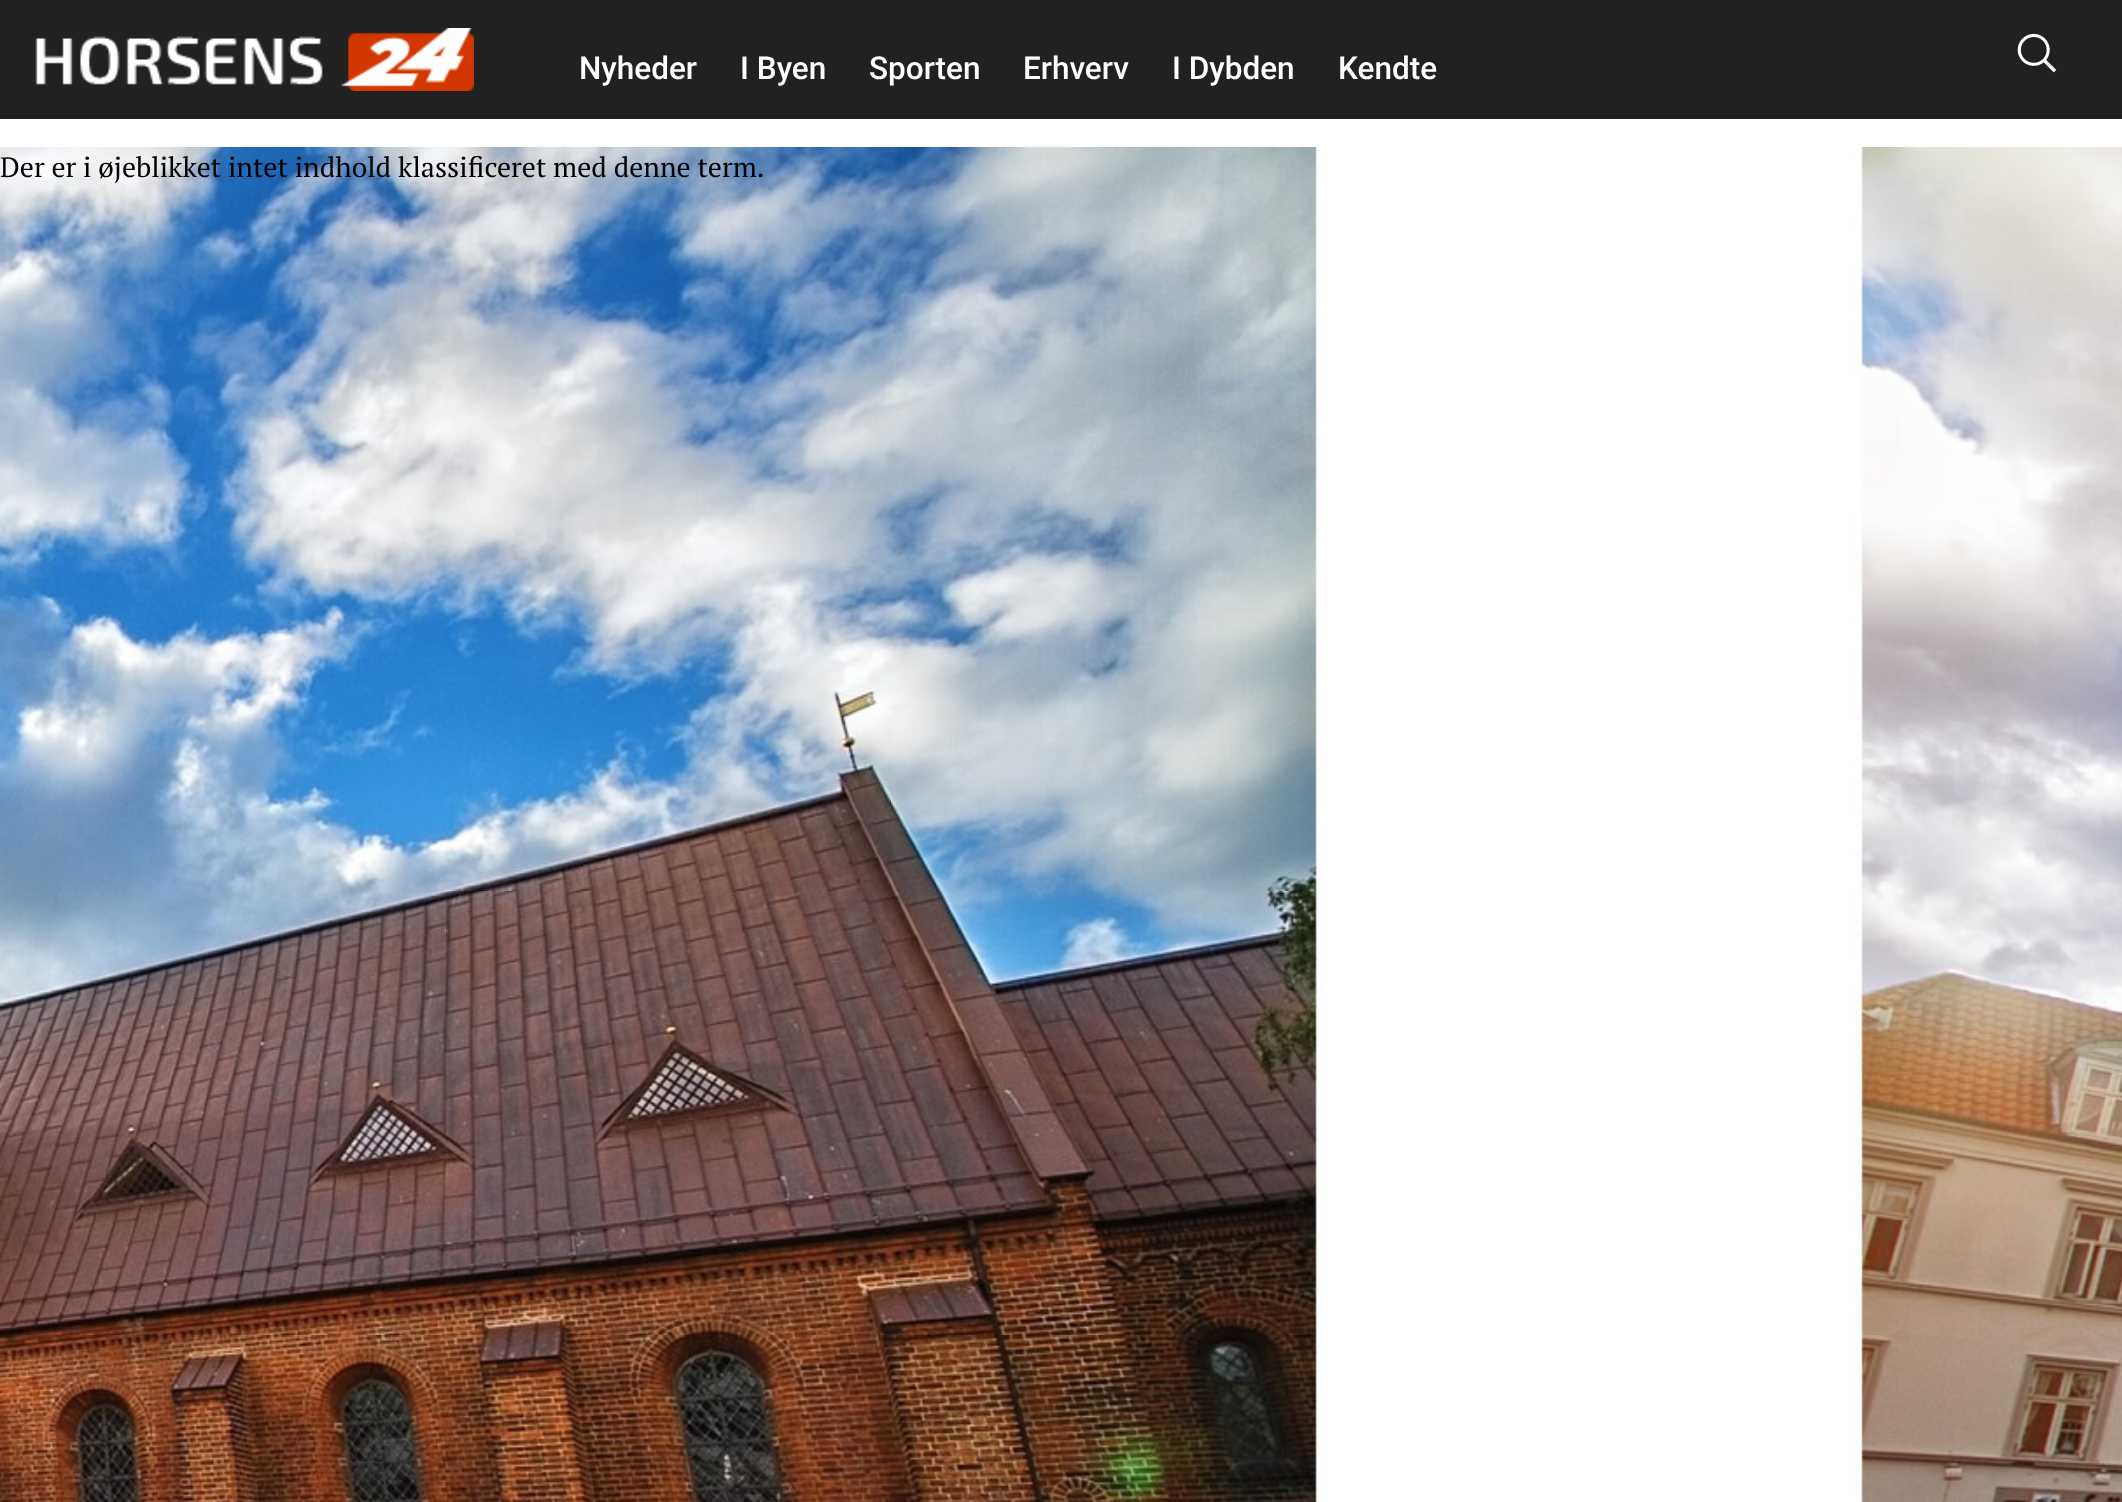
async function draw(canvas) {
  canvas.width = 2122;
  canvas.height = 1502;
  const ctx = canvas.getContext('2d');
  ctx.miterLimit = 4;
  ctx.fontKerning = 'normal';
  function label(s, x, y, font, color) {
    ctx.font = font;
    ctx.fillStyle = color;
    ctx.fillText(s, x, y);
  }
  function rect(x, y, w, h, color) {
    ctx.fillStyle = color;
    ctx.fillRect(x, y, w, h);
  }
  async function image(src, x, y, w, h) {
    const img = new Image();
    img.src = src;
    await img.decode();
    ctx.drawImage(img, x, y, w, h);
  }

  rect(0, 0, 2122, 1502, '#fff');
  rect(0, 0, 2122, 119, '#212121');
  await image('assets/img1.png', 35, 28, 439, 63);
  label('Nyheder', 579, 79, '500 31.5px Roboto', '#fff');
  label('I Byen', 740, 79, '500 31.5px Roboto', '#fff');
  label('Sporten', 869, 79, '500 31.5px Roboto', '#fff');
  label('Erhverv', 1023, 79, '500 31.5px Roboto', '#fff');
  label('I Dybden', 1172, 79, '500 31.5px Roboto', '#fff');
  label('Kendte', 1338, 79, '500 31.5px Roboto', '#fff');
  await image('assets/img2.png', 2017, 33, 40, 40);
  await image('assets/img3.png', 0, 147, 2122, 1355);
  label('Der er i øjeblikket intet indhold klassificeret med denne term.', 0, 177, '28px PT Serif', '#000');
}

draw(document.querySelector('canvas'));
